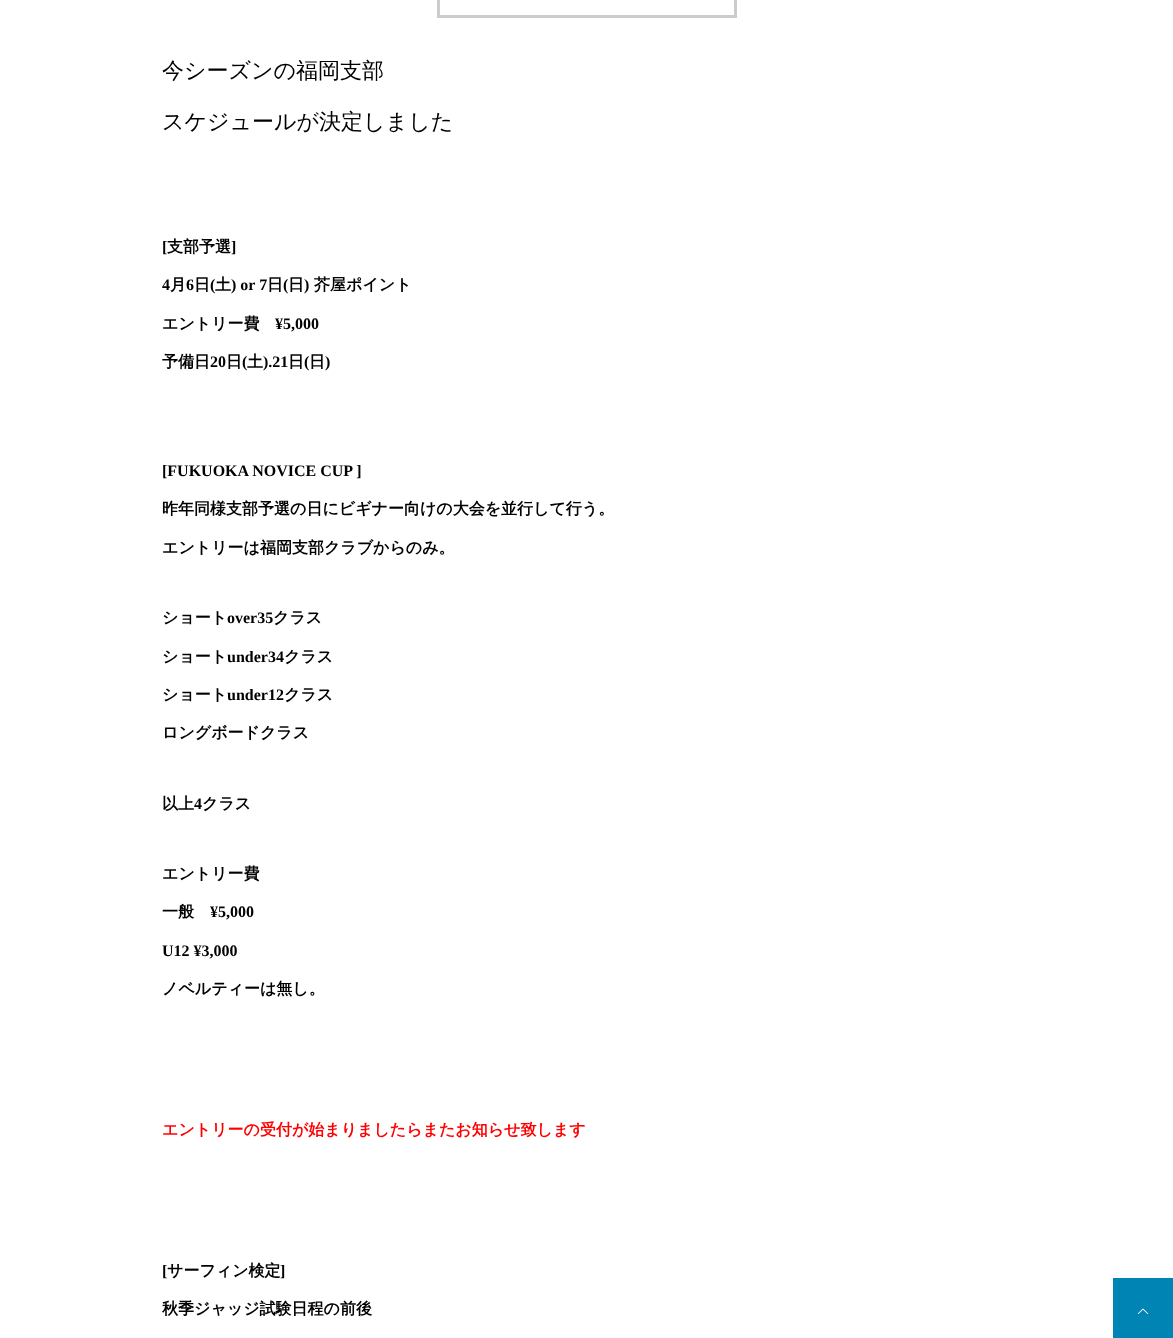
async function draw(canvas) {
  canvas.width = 1173;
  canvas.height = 1338;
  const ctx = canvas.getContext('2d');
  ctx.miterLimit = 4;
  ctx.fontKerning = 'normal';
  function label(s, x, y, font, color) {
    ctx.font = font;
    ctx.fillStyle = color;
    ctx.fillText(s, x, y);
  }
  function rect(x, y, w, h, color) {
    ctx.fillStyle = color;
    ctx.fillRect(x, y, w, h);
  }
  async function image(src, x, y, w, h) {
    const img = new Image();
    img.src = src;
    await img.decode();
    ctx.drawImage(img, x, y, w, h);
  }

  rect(0, 0, 1173, 1338, '#fff');
  ctx.strokeStyle = '#ccc';
  ctx.lineWidth = 3;
  ctx.strokeRect(438.5, -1.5, 297, 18);
  label('今シーズンの福岡支部', 162, 78, '500 22px WenQuanYi Zen Hei', '#000');
  label('スケジュールが決定しました', 162, 129, '500 22px WenQuanYi Zen Hei', '#000');
  label('[', 162, 252, 'bold 16px Liberation Serif', '#000');
  label('支部予選', 167, 252, 'bold 16px WenQuanYi Zen Hei', '#000');
  label(']', 231, 252, 'bold 16px Liberation Serif', '#000');
  label('4', 162, 290, 'bold 16px Liberation Serif', '#000');
  label('月', 170, 290, 'bold 16px WenQuanYi Zen Hei', '#000');
  label('6', 186, 290, 'bold 16px Liberation Serif', '#000');
  label('日', 194, 290, 'bold 16px WenQuanYi Zen Hei', '#000');
  label('(', 210, 290, 'bold 16px Liberation Serif', '#000');
  label('土', 215, 290, 'bold 16px WenQuanYi Zen Hei', '#000');
  label(') or 7', 231, 290, 'bold 16px Liberation Serif', '#000');
  label('日', 267, 290, 'bold 16px WenQuanYi Zen Hei', '#000');
  label('(', 283, 290, 'bold 16px Liberation Serif', '#000');
  label('日', 288, 290, 'bold 16px WenQuanYi Zen Hei', '#000');
  label(')', 304, 290, 'bold 16px Liberation Serif', '#000');
  label('芥屋ポイント', 314, 290, 'bold 16px WenQuanYi Zen Hei', '#000');
  label('エントリー費', 162, 329, 'bold 16px WenQuanYi Zen Hei', '#000');
  label('¥5,000', 275, 329, 'bold 16px Liberation Serif', '#000');
  label('予備日', 162, 367, 'bold 16px WenQuanYi Zen Hei', '#000');
  label('20', 210, 367, 'bold 16px Liberation Serif', '#000');
  label('日', 226, 367, 'bold 16px WenQuanYi Zen Hei', '#000');
  label('(', 242, 367, 'bold 16px Liberation Serif', '#000');
  label('土', 247, 367, 'bold 16px WenQuanYi Zen Hei', '#000');
  label(').21', 263, 367, 'bold 16px Liberation Serif', '#000');
  label('日', 288, 367, 'bold 16px WenQuanYi Zen Hei', '#000');
  label('(', 304, 367, 'bold 16px Liberation Serif', '#000');
  label('日', 309, 367, 'bold 16px WenQuanYi Zen Hei', '#000');
  label(')', 325, 367, 'bold 16px Liberation Serif', '#000');
  label('[FUKUOKA NOVICE CUP ]', 162, 476, 'bold 16px Liberation Serif', '#000');
  label('昨年同様支部予選の日にビギナー向けの大会を並行して行う。', 162, 514, 'bold 16px WenQuanYi Zen Hei', '#000');
  label('エントリーは福岡支部クラブからのみ。', 162, 553, 'bold 16px WenQuanYi Zen Hei', '#000');
  label('ショート', 162, 623, 'bold 16px WenQuanYi Zen Hei', '#000');
  label('over35', 227, 623, 'bold 16px Liberation Serif', '#000');
  label('クラス', 273, 623, 'bold 16px WenQuanYi Zen Hei', '#000');
  label('ショート', 162, 662, 'bold 16px WenQuanYi Zen Hei', '#000');
  label('under34', 227, 662, 'bold 16px Liberation Serif', '#000');
  label('クラス', 284, 662, 'bold 16px WenQuanYi Zen Hei', '#000');
  label('ショート', 162, 700, 'bold 16px WenQuanYi Zen Hei', '#000');
  label('under12', 227, 700, 'bold 16px Liberation Serif', '#000');
  label('クラス', 284, 700, 'bold 16px WenQuanYi Zen Hei', '#000');
  label('ロングボードクラス', 162, 738, 'bold 16px WenQuanYi Zen Hei', '#000');
  label('以上', 162, 809, 'bold 16px WenQuanYi Zen Hei', '#000');
  label('4', 194, 809, 'bold 16px Liberation Serif', '#000');
  label('クラス', 202, 809, 'bold 16px WenQuanYi Zen Hei', '#000');
  label('エントリー費', 162, 879, 'bold 16px WenQuanYi Zen Hei', '#000');
  label('一般', 162, 917, 'bold 16px WenQuanYi Zen Hei', '#000');
  label('¥5,000', 210, 917, 'bold 16px Liberation Serif', '#000');
  label('U12 ¥3,000', 162, 956, 'bold 16px Liberation Serif', '#000');
  label('ノベルティーは無し。', 162, 994, 'bold 16px WenQuanYi Zen Hei', '#000');
  label('エントリーの受付が始まりましたらまたお知らせ致します', 162, 1135, 'bold 16px WenQuanYi Zen Hei', '#f00');
  label('[', 162, 1276, 'bold 16px Liberation Serif', '#000');
  label('サーフィン検定', 167, 1276, 'bold 16px WenQuanYi Zen Hei', '#000');
  label(']', 280, 1276, 'bold 16px Liberation Serif', '#000');
  label('秋季ジャッジ試験日程の前後', 162, 1314, 'bold 16px WenQuanYi Zen Hei', '#000');
  rect(1113, 1278, 60, 60, '#0084b4');
  await image('assets/img1.png', 1137, 1308, 12, 6);
}

draw(document.querySelector('canvas'));
